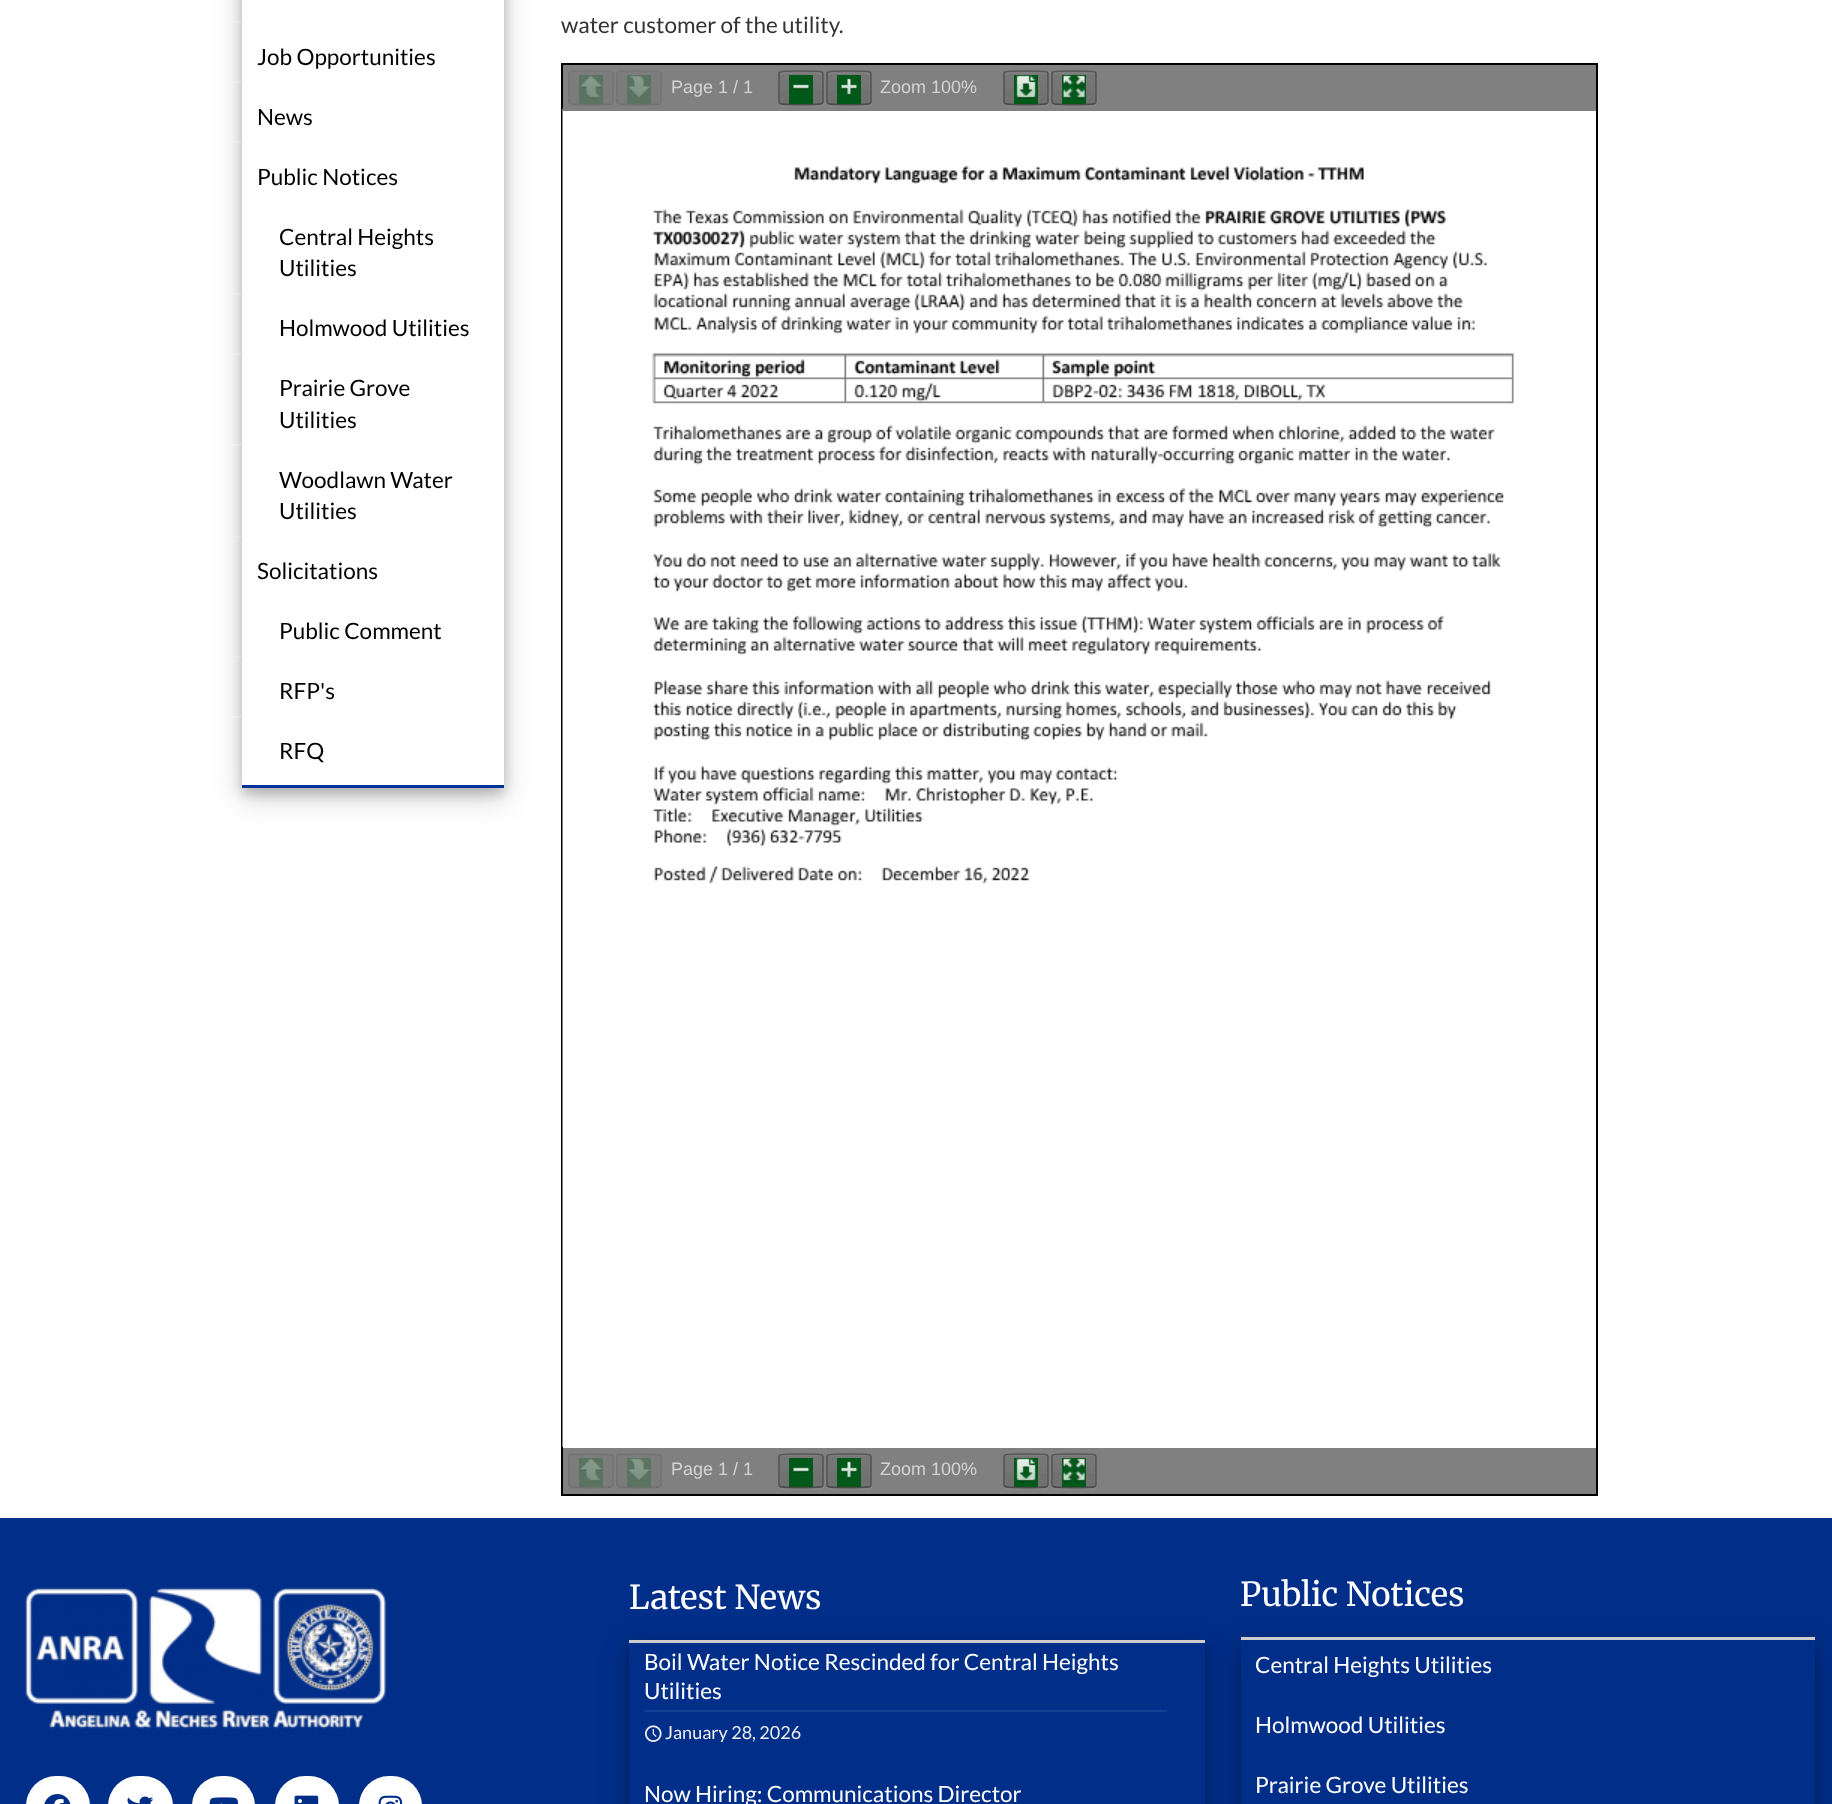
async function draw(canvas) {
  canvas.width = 1832;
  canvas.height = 1804;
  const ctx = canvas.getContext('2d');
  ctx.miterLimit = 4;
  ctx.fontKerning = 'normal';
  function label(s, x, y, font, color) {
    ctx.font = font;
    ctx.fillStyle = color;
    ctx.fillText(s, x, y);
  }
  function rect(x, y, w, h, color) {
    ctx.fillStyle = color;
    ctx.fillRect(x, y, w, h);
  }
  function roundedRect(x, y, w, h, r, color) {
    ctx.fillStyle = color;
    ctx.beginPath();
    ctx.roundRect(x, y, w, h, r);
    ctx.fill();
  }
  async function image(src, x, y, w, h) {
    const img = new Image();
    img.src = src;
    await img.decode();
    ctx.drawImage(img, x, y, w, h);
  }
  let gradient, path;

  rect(0, 0, 1832, 1804, '#fff');
  ctx.fillStyle = '#00000030';
  ctx.filter = 'blur(15px)';
  ctx.beginPath();
  ctx.rect(242, -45, 262, 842);
  ctx.fill();
  ctx.filter = 'none';
  ctx.fillStyle = '#00000033';
  ctx.filter = 'blur(6px)';
  ctx.beginPath();
  ctx.rect(242, -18, 262, 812);
  ctx.fill();
  ctx.filter = 'none';
  rect(242, 0, 262, 785, '#fff');
  rect(242, 785, 262, 3, '#039');
  rect(231, 21, 11, 2, '#ffffff33');
  label('Job Opportunities', 257, 65, '22.5px Lato', '#000');
  rect(231, 81, 11, 2, '#ffffff33');
  label('News', 257, 125, '22.5px Lato', '#000');
  rect(231, 141, 11, 2, '#ffffff33');
  label('Public Notices', 257, 185, '22.5px Lato', '#000');
  label('Central Heights', 279, 245, '22.5px Lato', '#000');
  label('Utilities', 279, 276, '22.5px Lato', '#000');
  rect(231, 293, 11, 2, '#ffffff33');
  label('Holmwood Utilities', 279, 336, '22.5px Lato', '#000');
  rect(231, 353, 11, 2, '#ffffff33');
  label('Prairie Grove', 279, 396, '22.5px Lato', '#000');
  label('Utilities', 279, 428, '22.5px Lato', '#000');
  rect(231, 444, 11, 2, '#ffffff33');
  label('Woodlawn Water', 279, 488, '22.5px Lato', '#000');
  label('Utilities', 279, 519, '22.5px Lato', '#000');
  rect(231, 536, 11, 2, '#ffffff33');
  label('Solicitations', 257, 579, '22.5px Lato', '#000');
  label('Public Comment', 279, 639, '22.5px Lato', '#000');
  rect(231, 656, 11, 2, '#ffffff33');
  label('RFP\'s', 279, 699, '22.5px Lato', '#000');
  rect(231, 716, 11, 2, '#ffffff33');
  label('RFQ', 279, 759, '22.5px Lato', '#000');
  label('water customer of the utility.', 561, 33, '22.5px Lato', '#333');
  ctx.strokeStyle = '#000';
  ctx.lineWidth = 2;
  ctx.strokeRect(562, 64, 1035, 1431);
  await image('assets/img7.png', 562, 109, 1034, 1338);
  rect(563, 65, 1033, 46, '#808080');
  gradient = ctx.createLinearGradient(591, 72, 591, 104);
  gradient.addColorStop(0, '#7d7d7d');
  gradient.addColorStop(1, '#7b7b7b');
  ctx.fillStyle = gradient;
  ctx.beginPath();
  ctx.roundRect(570, 72, 42, 32, 1.5);
  ctx.fill();
  path = new Path2D('M570 72C571 70.5 611 70.5 612 72');
  ctx.strokeStyle = '#747474';
  ctx.lineWidth = 1.5;
  ctx.stroke(path);
  path = new Path2D('M612 72C612.5 72.5 613 73 613 73.5V102C613 102.5 612.5 103 612 103.5');
  ctx.strokeStyle = '#727272';
  ctx.stroke(path);
  path = new Path2D('M612 103.5C611 105 571 105 570 103.5');
  ctx.strokeStyle = '#5a5a5a6b';
  ctx.stroke(path);
  path = new Path2D('M570 103.5C569.5 103 569 102.5 569 102V73.5C569 73 569.5 72.5 570 72');
  ctx.strokeStyle = '#5a5a5a61';
  ctx.stroke(path);
  rect(579, 75, 24, 29, '#5a7461');
  await image('assets/img1.png', 580, 75, 22, 24);
  gradient = ctx.createLinearGradient(639, 72, 639, 104);
  gradient.addColorStop(0, '#7d7d7d');
  gradient.addColorStop(1, '#7b7b7b');
  ctx.fillStyle = gradient;
  ctx.beginPath();
  ctx.roundRect(618, 72, 42, 32, 1.5);
  ctx.fill();
  path = new Path2D('M618 72C619 70.5 659 70.5 660 72');
  ctx.strokeStyle = '#747474';
  ctx.stroke(path);
  path = new Path2D('M660 72C660.5 72.5 661 73 661 73.5V102C661 102.5 660.5 103 660 103.5');
  ctx.strokeStyle = '#727272';
  ctx.stroke(path);
  path = new Path2D('M660 103.5C659 105 619 105 618 103.5');
  ctx.strokeStyle = '#5a5a5a6b';
  ctx.stroke(path);
  path = new Path2D('M618 103.5C617.5 103 617 102.5 617 102V73.5C617 73 617.5 72.5 618 72');
  ctx.strokeStyle = '#5a5a5a61';
  ctx.stroke(path);
  rect(627, 75, 24, 29, '#5a7461');
  await image('assets/img2.png', 628, 75, 22, 22);
  label('Page 1 / 1', 671, 93, '18px Liberation Sans', '#d3d3d3');
  ctx.fillStyle = '#868686';
  path = new Path2D('M779 104C779 105 780 107 781 107H808C828 107 824 110 824 90C824 87 825 76 823 73L824 97C824 106 823 105 814 105H788C786 105 781 106 779 104Z');
  ctx.fill(path);
  roundedRect(780, 72, 42, 32, 1.5, '#717171');
  gradient = ctx.createLinearGradient(801, 72, 801, 104);
  gradient.addColorStop(0, '#ffffff0d');
  gradient.addColorStop(1, '#ffffff00');
  ctx.fillStyle = gradient;
  ctx.fillRect(780, 72, 42, 18);
  ctx.fillStyle = '#7f7f7f';
  path = new Path2D('M782 74H820C821 74 822 74 822 75C822 70 819 72 814 72H788C783 72 780 70 780 75C780 74 781 74 782 74Z');
  ctx.fill(path);
  path = new Path2D('M780 72C781 70.5 821 70.5 822 72');
  ctx.strokeStyle = '#575757';
  ctx.stroke(path);
  path = new Path2D('M822 72C822.5 72.5 823 73 823 73.5V102C823 102.5 822.5 103 822 103.5');
  ctx.strokeStyle = '#00000061';
  ctx.stroke(path);
  path = new Path2D('M822 103.5C821 105 781 105 780 103.5');
  ctx.strokeStyle = '#0000006b';
  ctx.stroke(path);
  path = new Path2D('M780 103.5C779.5 103 779 102.5 779 102V73.5C779 73 779.5 72.5 780 72');
  ctx.strokeStyle = '#00000061';
  ctx.stroke(path);
  rect(789, 75, 24, 29, '#005819');
  await image('assets/img3.png', 793, 84, 16, 6);
  ctx.fillStyle = '#868686';
  path = new Path2D('M827 104C827 105 828 107 829 107H856C876 107 872 110 872 90C872 87 873 76 871 73L872 97C872 106 871 105 862 105H836C834 105 829 106 827 104Z');
  ctx.fill(path);
  roundedRect(828, 72, 42, 32, 1.5, '#717171');
  gradient = ctx.createLinearGradient(849, 72, 849, 104);
  gradient.addColorStop(0, '#ffffff0d');
  gradient.addColorStop(1, '#ffffff00');
  ctx.fillStyle = gradient;
  ctx.fillRect(828, 72, 42, 18);
  ctx.fillStyle = '#7f7f7f';
  path = new Path2D('M830 74H868C869 74 870 74 870 75C870 70 867 72 862 72H836C831 72 828 70 828 75C828 74 829 74 830 74Z');
  ctx.fill(path);
  path = new Path2D('M828 72C829 70.5 869 70.5 870 72');
  ctx.strokeStyle = '#575757';
  ctx.stroke(path);
  path = new Path2D('M870 72C870.5 72.5 871 73 871 73.5V102C871 102.5 870.5 103 870 103.5');
  ctx.strokeStyle = '#00000061';
  ctx.stroke(path);
  path = new Path2D('M870 103.5C869 105 829 105 828 103.5');
  ctx.strokeStyle = '#0000006b';
  ctx.stroke(path);
  path = new Path2D('M828 103.5C827.5 103 827 102.5 827 102V73.5C827 73 827.5 72.5 828 72');
  ctx.strokeStyle = '#00000061';
  ctx.stroke(path);
  rect(837, 75, 24, 29, '#005819');
  await image('assets/img4.png', 841, 78, 16, 18);
  label('Zoom 100%', 880, 93, '18px Liberation Sans', '#d3d3d3');
  ctx.fillStyle = '#868686';
  path = new Path2D('M1004 104C1004 105 1005 107 1006 107H1033C1053 107 1049 110 1049 90C1049 87 1050 76 1048 73V97C1048 106 1048 105 1039 105H1013C1011 105 1006 106 1004 104Z');
  ctx.fill(path);
  roundedRect(1005, 72, 42, 32, 1.5, '#717171');
  gradient = ctx.createLinearGradient(1026, 72, 1026, 104);
  gradient.addColorStop(0, '#ffffff0d');
  gradient.addColorStop(1, '#ffffff00');
  ctx.fillStyle = gradient;
  ctx.fillRect(1005, 72, 42, 18);
  ctx.fillStyle = '#7f7f7f';
  path = new Path2D('M1006 74H1046L1047 75C1047 70 1044 72 1039 72H1013C1008 72 1005 70 1005 75Z');
  ctx.fill(path);
  path = new Path2D('M1005 72C1006 70.5 1046 70.5 1047 72');
  ctx.strokeStyle = '#575757';
  ctx.stroke(path);
  path = new Path2D('M1047 72C1047.5 72.5 1048 73 1048 73.5V102C1048 102.5 1047.5 103 1047 103.5');
  ctx.strokeStyle = '#00000061';
  ctx.stroke(path);
  path = new Path2D('M1047 103.5C1046 105 1006 105 1005 103.5');
  ctx.strokeStyle = '#0000006b';
  ctx.stroke(path);
  path = new Path2D('M1005 103.5C1004.5 103 1004 102.5 1004 102V73.5C1004 73 1004.5 72.5 1005 72');
  ctx.strokeStyle = '#00000061';
  ctx.stroke(path);
  rect(1014, 75, 24, 29, '#005819');
  await image('assets/img5.png', 1016, 75, 20, 24);
  ctx.fillStyle = '#868686';
  path = new Path2D('M1052 104C1052 105 1053 107 1054 107H1081C1101 107 1097 110 1097 90C1097 87 1098 76 1096 73V97C1096 106 1096 105 1087 105H1061C1059 105 1054 106 1052 104Z');
  ctx.fill(path);
  roundedRect(1053, 72, 42, 32, 1.5, '#717171');
  gradient = ctx.createLinearGradient(1074, 72, 1074, 104);
  gradient.addColorStop(0, '#ffffff0d');
  gradient.addColorStop(1, '#ffffff00');
  ctx.fillStyle = gradient;
  ctx.fillRect(1053, 72, 42, 18);
  ctx.fillStyle = '#7f7f7f';
  path = new Path2D('M1054 74H1094L1095 75C1095 70 1092 72 1087 72H1061C1056 72 1053 70 1053 75Z');
  ctx.fill(path);
  path = new Path2D('M1053 72C1054 70.5 1094 70.5 1095 72');
  ctx.strokeStyle = '#575757';
  ctx.stroke(path);
  path = new Path2D('M1095 72C1095.5 72.5 1096 73 1096 73.5V102C1096 102.5 1095.5 103 1095 103.5');
  ctx.strokeStyle = '#00000061';
  ctx.stroke(path);
  path = new Path2D('M1095 103.5C1094 105 1054 105 1053 103.5');
  ctx.strokeStyle = '#0000006b';
  ctx.stroke(path);
  path = new Path2D('M1053 103.5C1052.5 103 1052 102.5 1052 102V73.5C1052 73 1052.5 72.5 1053 72');
  ctx.strokeStyle = '#00000061';
  ctx.stroke(path);
  rect(1062, 75, 24, 29, '#005819');
  await image('assets/img6.png', 1063, 75, 22, 24);
  rect(563, 1448, 1033, 46, '#808080');
  gradient = ctx.createLinearGradient(591, 1455, 591, 1487);
  gradient.addColorStop(0, '#7d7d7d');
  gradient.addColorStop(1, '#7b7b7b');
  ctx.fillStyle = gradient;
  ctx.beginPath();
  ctx.roundRect(570, 1455, 42, 32, 1.5);
  ctx.fill();
  path = new Path2D('M570 1455C571 1453.5 611 1453.5 612 1455');
  ctx.strokeStyle = '#747474';
  ctx.stroke(path);
  path = new Path2D('M612 1455C612.5 1455.5 613 1456 613 1456.5V1485C613 1485.5 612.5 1486 612 1486.5');
  ctx.strokeStyle = '#727272';
  ctx.stroke(path);
  path = new Path2D('M612 1486.5C611 1488 571 1488 570 1486.5');
  ctx.strokeStyle = '#5a5a5a6b';
  ctx.stroke(path);
  path = new Path2D('M570 1486.5C569.5 1486 569 1485.5 569 1485V1456.5C569 1456 569.5 1455.5 570 1455');
  ctx.strokeStyle = '#5a5a5a61';
  ctx.stroke(path);
  rect(579, 1458, 24, 29, '#5a7461');
  await image('assets/img1.png', 580, 1458, 22, 24);
  gradient = ctx.createLinearGradient(639, 1455, 639, 1487);
  gradient.addColorStop(0, '#7d7d7d');
  gradient.addColorStop(1, '#7b7b7b');
  ctx.fillStyle = gradient;
  ctx.beginPath();
  ctx.roundRect(618, 1455, 42, 32, 1.5);
  ctx.fill();
  path = new Path2D('M618 1455C619 1453.5 659 1453.5 660 1455');
  ctx.strokeStyle = '#747474';
  ctx.stroke(path);
  path = new Path2D('M660 1455C660.5 1455.5 661 1456 661 1456.5V1485C661 1485.5 660.5 1486 660 1486.5');
  ctx.strokeStyle = '#727272';
  ctx.stroke(path);
  path = new Path2D('M660 1486.5C659 1488 619 1488 618 1486.5');
  ctx.strokeStyle = '#5a5a5a6b';
  ctx.stroke(path);
  path = new Path2D('M618 1486.5C617.5 1486 617 1485.5 617 1485V1456.5C617 1456 617.5 1455.5 618 1455');
  ctx.strokeStyle = '#5a5a5a61';
  ctx.stroke(path);
  rect(627, 1458, 24, 29, '#5a7461');
  await image('assets/img2.png', 628, 1458, 22, 22);
  label('Page 1 / 1', 671, 1475, '18px Liberation Sans', '#d3d3d3');
  ctx.fillStyle = '#868686';
  path = new Path2D('M779 1487C779 1488 780 1490 781 1490H808C828 1490 824 1493 824 1472C824 1470 825 1459 823 1456L824 1480C824 1489 823 1488 814 1488H788C786 1488 781 1489 779 1487Z');
  ctx.fill(path);
  roundedRect(780, 1455, 42, 32, 1.5, '#717171');
  gradient = ctx.createLinearGradient(801, 1455, 801, 1487);
  gradient.addColorStop(0, '#ffffff0d');
  gradient.addColorStop(1, '#ffffff00');
  ctx.fillStyle = gradient;
  ctx.fillRect(780, 1455, 42, 18);
  ctx.fillStyle = '#7f7f7f';
  path = new Path2D('M782 1456H820C821 1456 822 1457 822 1458C822 1453 819 1455 814 1455H788C783 1455 780 1453 780 1458C780 1457 781 1456 782 1456Z');
  ctx.fill(path);
  path = new Path2D('M780 1455C781 1453.5 821 1453.5 822 1455');
  ctx.strokeStyle = '#575757';
  ctx.stroke(path);
  path = new Path2D('M822 1455C822.5 1455.5 823 1456 823 1456.5V1485C823 1485.5 822.5 1486 822 1486.5');
  ctx.strokeStyle = '#00000061';
  ctx.stroke(path);
  path = new Path2D('M822 1486.5C821 1488 781 1488 780 1486.5');
  ctx.strokeStyle = '#0000006b';
  ctx.stroke(path);
  path = new Path2D('M780 1486.5C779.5 1486 779 1485.5 779 1485V1456.5C779 1456 779.5 1455.5 780 1455');
  ctx.strokeStyle = '#00000061';
  ctx.stroke(path);
  rect(789, 1458, 24, 29, '#005819');
  await image('assets/img3.png', 793, 1467, 16, 6);
  ctx.fillStyle = '#868686';
  path = new Path2D('M827 1487C827 1488 828 1490 829 1490H856C876 1490 872 1493 872 1472C872 1470 873 1459 871 1456L872 1480C872 1489 871 1488 862 1488H836C834 1488 829 1489 827 1487Z');
  ctx.fill(path);
  roundedRect(828, 1455, 42, 32, 1.5, '#717171');
  gradient = ctx.createLinearGradient(849, 1455, 849, 1487);
  gradient.addColorStop(0, '#ffffff0d');
  gradient.addColorStop(1, '#ffffff00');
  ctx.fillStyle = gradient;
  ctx.fillRect(828, 1455, 42, 18);
  ctx.fillStyle = '#7f7f7f';
  path = new Path2D('M830 1456H868C869 1456 870 1457 870 1458C870 1453 867 1455 862 1455H836C831 1455 828 1453 828 1458C828 1457 829 1456 830 1456Z');
  ctx.fill(path);
  path = new Path2D('M828 1455C829 1453.5 869 1453.5 870 1455');
  ctx.strokeStyle = '#575757';
  ctx.stroke(path);
  path = new Path2D('M870 1455C870.5 1455.5 871 1456 871 1456.5V1485C871 1485.5 870.5 1486 870 1486.5');
  ctx.strokeStyle = '#00000061';
  ctx.stroke(path);
  path = new Path2D('M870 1486.5C869 1488 829 1488 828 1486.5');
  ctx.strokeStyle = '#0000006b';
  ctx.stroke(path);
  path = new Path2D('M828 1486.5C827.5 1486 827 1485.5 827 1485V1456.5C827 1456 827.5 1455.5 828 1455');
  ctx.strokeStyle = '#00000061';
  ctx.stroke(path);
  rect(837, 1458, 24, 29, '#005819');
  await image('assets/img4.png', 841, 1461, 16, 18);
  label('Zoom 100%', 880, 1475, '18px Liberation Sans', '#d3d3d3');
  ctx.fillStyle = '#868686';
  path = new Path2D('M1004 1487C1004 1488 1005 1490 1006 1490H1033C1053 1490 1049 1493 1049 1472C1049 1470 1050 1459 1048 1456V1480C1048 1489 1048 1488 1039 1488H1013C1011 1488 1006 1489 1004 1487Z');
  ctx.fill(path);
  roundedRect(1005, 1455, 42, 32, 1.5, '#717171');
  gradient = ctx.createLinearGradient(1026, 1455, 1026, 1487);
  gradient.addColorStop(0, '#ffffff0d');
  gradient.addColorStop(1, '#ffffff00');
  ctx.fillStyle = gradient;
  ctx.fillRect(1005, 1455, 42, 18);
  ctx.fillStyle = '#7f7f7f';
  path = new Path2D('M1006 1456H1046L1047 1458C1047 1453 1044 1455 1039 1455H1013C1008 1455 1005 1453 1005 1458Z');
  ctx.fill(path);
  path = new Path2D('M1005 1455C1006 1453.5 1046 1453.5 1047 1455');
  ctx.strokeStyle = '#575757';
  ctx.stroke(path);
  path = new Path2D('M1047 1455C1047.5 1455.5 1048 1456 1048 1456.5V1485C1048 1485.5 1047.5 1486 1047 1486.5');
  ctx.strokeStyle = '#00000061';
  ctx.stroke(path);
  path = new Path2D('M1047 1486.5C1046 1488 1006 1488 1005 1486.5');
  ctx.strokeStyle = '#0000006b';
  ctx.stroke(path);
  path = new Path2D('M1005 1486.5C1004.5 1486 1004 1485.5 1004 1485V1456.5C1004 1456 1004.5 1455.5 1005 1455');
  ctx.strokeStyle = '#00000061';
  ctx.stroke(path);
  rect(1014, 1458, 24, 29, '#005819');
  await image('assets/img5.png', 1016, 1458, 20, 24);
  ctx.fillStyle = '#868686';
  path = new Path2D('M1052 1487C1052 1488 1053 1490 1054 1490H1081C1101 1490 1097 1493 1097 1472C1097 1470 1098 1459 1096 1456V1480C1096 1489 1096 1488 1087 1488H1061C1059 1488 1054 1489 1052 1487Z');
  ctx.fill(path);
  roundedRect(1053, 1455, 42, 32, 1.5, '#717171');
  gradient = ctx.createLinearGradient(1074, 1455, 1074, 1487);
  gradient.addColorStop(0, '#ffffff0d');
  gradient.addColorStop(1, '#ffffff00');
  ctx.fillStyle = gradient;
  ctx.fillRect(1053, 1455, 42, 18);
  ctx.fillStyle = '#7f7f7f';
  path = new Path2D('M1054 1456H1094L1095 1458C1095 1453 1092 1455 1087 1455H1061C1056 1455 1053 1453 1053 1458Z');
  ctx.fill(path);
  path = new Path2D('M1053 1455C1054 1453.5 1094 1453.5 1095 1455');
  ctx.strokeStyle = '#575757';
  ctx.stroke(path);
  path = new Path2D('M1095 1455C1095.5 1455.5 1096 1456 1096 1456.5V1485C1096 1485.5 1095.5 1486 1095 1486.5');
  ctx.strokeStyle = '#00000061';
  ctx.stroke(path);
  path = new Path2D('M1095 1486.5C1094 1488 1054 1488 1053 1486.5');
  ctx.strokeStyle = '#0000006b';
  ctx.stroke(path);
  path = new Path2D('M1053 1486.5C1052.5 1486 1052 1485.5 1052 1485V1456.5C1052 1456 1052.5 1455.5 1053 1455');
  ctx.strokeStyle = '#00000061';
  ctx.stroke(path);
  rect(1062, 1458, 24, 29, '#005819');
  await image('assets/img6.png', 1063, 1458, 22, 24);
  rect(0, 1518, 1832, 286, '#002e89');
  await image('assets/img8.png', 25, 1587, 362, 142);
  roundedRect(26, 1776, 64, 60, 31.5, '#fff');
  await image('assets/img9.png', 44, 1794, 27, 10);
  roundedRect(108, 1776, 65, 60, 31.5, '#fff');
  await image('assets/img10.png', 127, 1796, 27, 8);
  roundedRect(192, 1776, 63, 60, 31.5, '#fff');
  await image('assets/img11.png', 209, 1797, 30, 7);
  roundedRect(275, 1776, 64, 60, 31.5, '#fff');
  await image('assets/img12.png', 294, 1795, 25, 9);
  roundedRect(359, 1776, 63, 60, 31.5, '#fff');
  await image('assets/img13.png', 378, 1795, 25, 9);
  ctx.fillStyle = '#00000030';
  ctx.filter = 'blur(15px)';
  ctx.beginPath();
  ctx.rect(629, 1649, 576, 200);
  ctx.fill();
  ctx.filter = 'none';
  label('Latest News', 629, 1609, '33px Merriweather', '#fff');
  ctx.fillStyle = '#00000033';
  ctx.filter = 'blur(6px)';
  ctx.beginPath();
  ctx.rect(629, 1646, 576, 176);
  ctx.fill();
  ctx.filter = 'none';
  rect(629, 1643, 576, 161, '#002e89');
  rect(629, 1640, 576, 3, '#ccc');
  rect(644, 1710, 523, 2, '#143f92');
  label('Boil Water Notice Rescinded for Central Heights', 644, 1670, '22.5px Lato', '#fff');
  label('Utilities', 644, 1699, '22.5px Lato', '#fff');
  await image('assets/img14.png', 645, 1725, 17, 17);
  label('January 28, 2026', 665, 1739, '18px Lato', '#eee');
  label('Now Hiring: Communications Director', 644, 1802, '22.5px Lato', '#fff');
  ctx.save();
  path = new Path2D('M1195 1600H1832V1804H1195ZM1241 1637H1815V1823H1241Z');
  ctx.clip(path, 'evenodd');
  ctx.fillStyle = '#00000030';
  ctx.filter = 'blur(15px)';
  ctx.beginPath();
  ctx.rect(1241, 1646, 574, 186);
  ctx.fill();
  ctx.filter = 'none';
  ctx.restore();
  label('Public Notices', 1240, 1606, '33px Merriweather', '#fff');
  ctx.save();
  path = new Path2D('M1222 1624H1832V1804H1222ZM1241 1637H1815V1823H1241Z');
  ctx.clip(path, 'evenodd');
  ctx.fillStyle = '#00000033';
  ctx.filter = 'blur(6px)';
  ctx.beginPath();
  ctx.rect(1241, 1643, 574, 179);
  ctx.fill();
  ctx.filter = 'none';
  ctx.restore();
  rect(1241, 1637, 574, 3, '#ccc');
  label('Central Heights Utilities', 1255, 1673, '22.5px Lato', '#fff');
  label('Holmwood Utilities', 1255, 1733, '22.5px Lato', '#fff');
  label('Prairie Grove Utilities', 1255, 1793, '22.5px Lato', '#fff');
}

draw(document.querySelector('canvas'));
